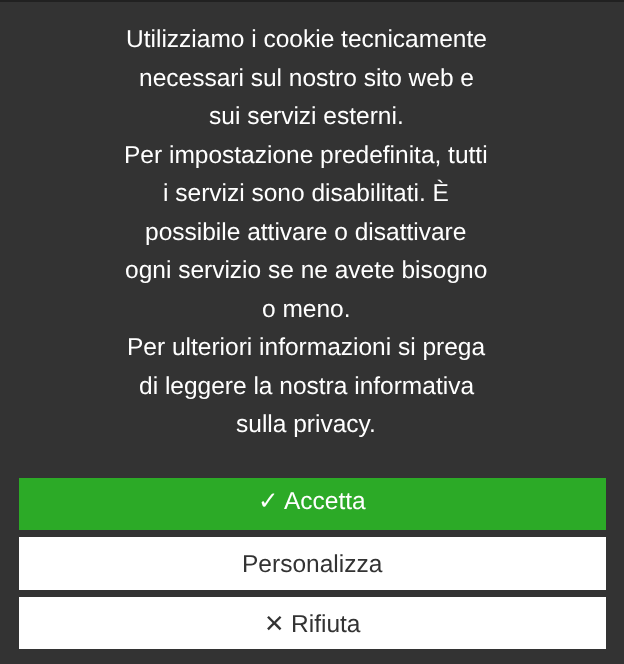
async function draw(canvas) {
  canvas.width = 624;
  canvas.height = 664;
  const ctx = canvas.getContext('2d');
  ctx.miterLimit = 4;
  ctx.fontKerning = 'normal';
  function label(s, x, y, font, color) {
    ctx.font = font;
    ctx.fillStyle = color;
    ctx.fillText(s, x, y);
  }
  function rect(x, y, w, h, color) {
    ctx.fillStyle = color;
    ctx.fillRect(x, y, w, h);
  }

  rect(0, 0, 624, 664, '#212121');
  rect(0, 2, 624, 662, '#333');
  label('Utilizziamo i cookie tecnicamente', 126, 47, '24.5px Liberation Sans', '#fff');
  label('necessari sul nostro sito web e', 139, 86, '24.5px Liberation Sans', '#fff');
  label('sui servizi esterni.', 209, 124, '24.5px Liberation Sans', '#fff');
  label('Per impostazione predefinita, tutti', 124, 163, '24.5px Liberation Sans', '#fff');
  label('i servizi sono disabilitati. È', 163, 201, '24.5px Liberation Sans', '#fff');
  label('possibile attivare o disattivare', 145, 240, '24.5px Liberation Sans', '#fff');
  label('ogni servizio se ne avete bisogno', 125, 278, '24.5px Liberation Sans', '#fff');
  label('o meno.', 262, 317, '24.5px Liberation Sans', '#fff');
  label('Per ulteriori informazioni si prega', 127, 355, '24.5px Liberation Sans', '#fff');
  label('di leggere la nostra informativa', 139, 394, '24.5px Liberation Sans', '#fff');
  label('sulla privacy.', 236, 432, '24.5px Liberation Sans', '#fff');
  rect(19, 478, 587, 52, '#2caa27');
  label('✓', 258, 509, '24.5px DejaVu Sans', '#fff');
  label('Accetta', 284, 509, '24.5px Liberation Sans', '#fff');
  rect(19, 537, 587, 53, '#fff');
  label('Personalizza', 242, 572, '24.5px Liberation Sans', '#333');
  rect(19, 597, 587, 52, '#fff');
  label('✕', 264, 632, '24.5px DejaVu Sans', '#333');
  label('Rifiuta', 291, 632, '24.5px Liberation Sans', '#333');
}

draw(document.querySelector('canvas'));
